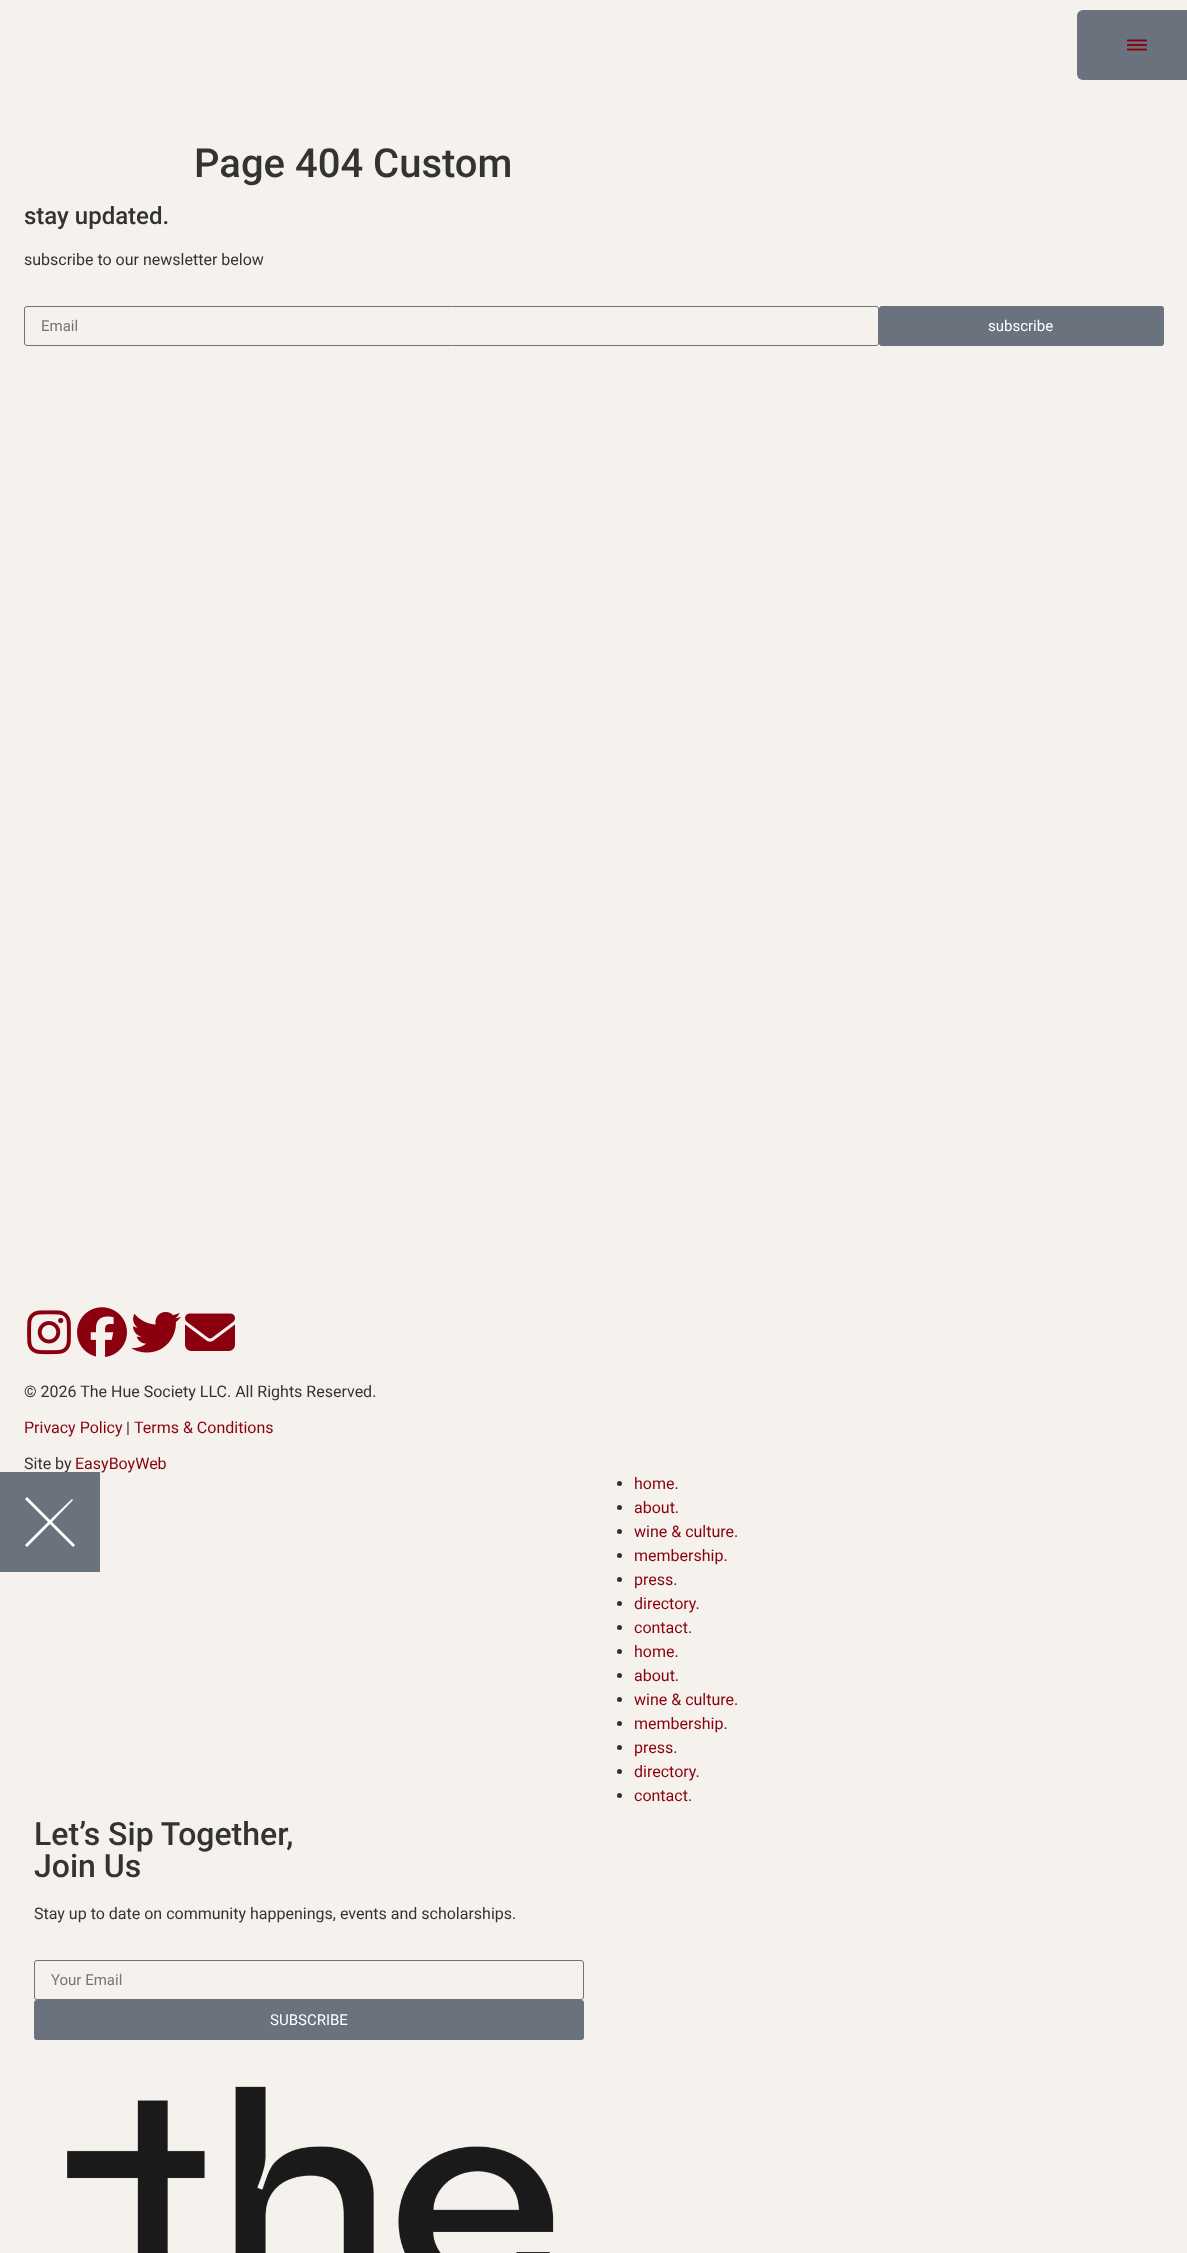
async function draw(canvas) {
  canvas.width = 1187;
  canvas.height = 2253;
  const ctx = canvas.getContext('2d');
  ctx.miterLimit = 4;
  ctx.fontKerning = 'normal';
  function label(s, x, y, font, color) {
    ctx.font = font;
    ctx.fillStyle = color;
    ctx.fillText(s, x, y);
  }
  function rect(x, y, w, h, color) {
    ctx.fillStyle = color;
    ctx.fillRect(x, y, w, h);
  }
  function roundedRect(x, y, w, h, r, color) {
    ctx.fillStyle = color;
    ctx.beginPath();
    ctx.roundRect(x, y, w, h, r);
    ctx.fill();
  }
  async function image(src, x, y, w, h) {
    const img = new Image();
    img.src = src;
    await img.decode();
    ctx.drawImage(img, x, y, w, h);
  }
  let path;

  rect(0, 0, 1187, 2253, '#f5f2ed');
  roundedRect(1077, 10, 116, 70, 6, '#69727d');
  await image('assets/img1.png', 1127, 39, 20, 12);
  label('Page 404 Custom', 194, 177, '500 40px Roboto', '#333');
  label('stay updated.', 24, 224, '500 24px Roboto', '#333');
  label('subscribe to our newsletter below', 24, 265, '16px Roboto', '#333');
  ctx.beginPath();
  ctx.roundRect(24.5, 306.5, 854, 39, 2.5);
  ctx.strokeStyle = '#69727d';
  ctx.stroke();
  label('Email', 41, 331, '15px Roboto', '#757574');
  roundedRect(879, 306, 285, 40, 3, '#69727d');
  label('subscribe', 988, 331, '15px Roboto', '#fff');
  await image('assets/img2.png', 27, 1310, 44, 45);
  await image('assets/img3.png', 77, 1307, 50, 50);
  await image('assets/img4.png', 131, 1311, 50, 42);
  await image('assets/img5.png', 185, 1313, 50, 38);
  label('© 2026 The Hue Society LLC. All Rights Reserved.', 24, 1397, '16px Roboto', '#333');
  label('Privacy Policy', 24, 1433, '16px Roboto', '#8a000f');
  label('|', 126, 1433, '16px Roboto', '#333');
  label('Terms & Conditions', 134, 1433, '16px Roboto', '#8a000f');
  label('Site by', 24, 1469, '16px Roboto', '#333');
  label('EasyBoyWeb', 75, 1469, '16px Roboto', '#8a000f');
  rect(0, 1472, 100, 100, '#69727d');
  ctx.fillStyle = '#fff';
  path = new Path2D('M75 1545L52 1522L73 1500L72 1499L50 1520L27 1497L25 1499L48 1522L25 1545L27 1547L50 1524L73 1547Z');
  ctx.fill(path);
  ctx.fillStyle = '#333';
  ctx.beginPath();
  ctx.arc(619.5, 1483.5, 2.5, 0, 2 * Math.PI);
  ctx.fill();
  label('home.', 634, 1489, '16px Roboto', '#8a000f');
  ctx.fillStyle = '#333';
  ctx.beginPath();
  ctx.arc(619.5, 1507.5, 2.5, 0, 2 * Math.PI);
  ctx.fill();
  label('about.', 634, 1513, '16px Roboto', '#8a000f');
  ctx.fillStyle = '#333';
  ctx.beginPath();
  ctx.arc(619.5, 1531.5, 2.5, 0, 2 * Math.PI);
  ctx.fill();
  label('wine & culture.', 634, 1537, '16px Roboto', '#8a000f');
  ctx.fillStyle = '#333';
  ctx.beginPath();
  ctx.arc(619.5, 1555.5, 2.5, 0, 2 * Math.PI);
  ctx.fill();
  label('membership.', 634, 1561, '16px Roboto', '#8a000f');
  ctx.fillStyle = '#333';
  ctx.beginPath();
  ctx.arc(619.5, 1579.5, 2.5, 0, 2 * Math.PI);
  ctx.fill();
  label('press.', 634, 1585, '16px Roboto', '#8a000f');
  ctx.fillStyle = '#333';
  ctx.beginPath();
  ctx.arc(619.5, 1603.5, 2.5, 0, 2 * Math.PI);
  ctx.fill();
  label('directory.', 634, 1609, '16px Roboto', '#8a000f');
  ctx.fillStyle = '#333';
  ctx.beginPath();
  ctx.arc(619.5, 1627.5, 2.5, 0, 2 * Math.PI);
  ctx.fill();
  label('contact.', 634, 1633, '16px Roboto', '#8a000f');
  ctx.fillStyle = '#333';
  ctx.beginPath();
  ctx.arc(619.5, 1651.5, 2.5, 0, 2 * Math.PI);
  ctx.fill();
  label('home.', 634, 1657, '16px Roboto', '#8a000f');
  ctx.fillStyle = '#333';
  ctx.beginPath();
  ctx.arc(619.5, 1675.5, 2.5, 0, 2 * Math.PI);
  ctx.fill();
  label('about.', 634, 1681, '16px Roboto', '#8a000f');
  ctx.fillStyle = '#333';
  ctx.beginPath();
  ctx.arc(619.5, 1699.5, 2.5, 0, 2 * Math.PI);
  ctx.fill();
  label('wine & culture.', 634, 1705, '16px Roboto', '#8a000f');
  ctx.fillStyle = '#333';
  ctx.beginPath();
  ctx.arc(619.5, 1723.5, 2.5, 0, 2 * Math.PI);
  ctx.fill();
  label('membership.', 634, 1729, '16px Roboto', '#8a000f');
  ctx.fillStyle = '#333';
  ctx.beginPath();
  ctx.arc(619.5, 1747.5, 2.5, 0, 2 * Math.PI);
  ctx.fill();
  label('press.', 634, 1753, '16px Roboto', '#8a000f');
  ctx.fillStyle = '#333';
  ctx.beginPath();
  ctx.arc(619.5, 1771.5, 2.5, 0, 2 * Math.PI);
  ctx.fill();
  label('directory.', 634, 1777, '16px Roboto', '#8a000f');
  ctx.fillStyle = '#333';
  ctx.beginPath();
  ctx.arc(619.5, 1795.5, 2.5, 0, 2 * Math.PI);
  ctx.fill();
  label('contact.', 634, 1801, '16px Roboto', '#8a000f');
  label('Let’s Sip Together,', 34, 1845, '500 32px Roboto', '#333');
  label('Join Us', 34, 1877, '500 32px Roboto', '#333');
  label('Stay up to date on community happenings, events and scholarships.', 34, 1919, '16px Roboto', '#333');
  ctx.beginPath();
  ctx.roundRect(34.5, 1960.5, 549, 39, 2.5);
  ctx.stroke();
  label('Your Email', 51, 1985, '15px Roboto', '#757574');
  roundedRect(34, 2000, 550, 40, 3, '#69727d');
  label('SUBSCRIBE', 270, 2025, '15px Roboto', '#fff');
  await image('assets/img6.png', 67, 2086, 487, 167);
}

draw(document.querySelector('canvas'));
